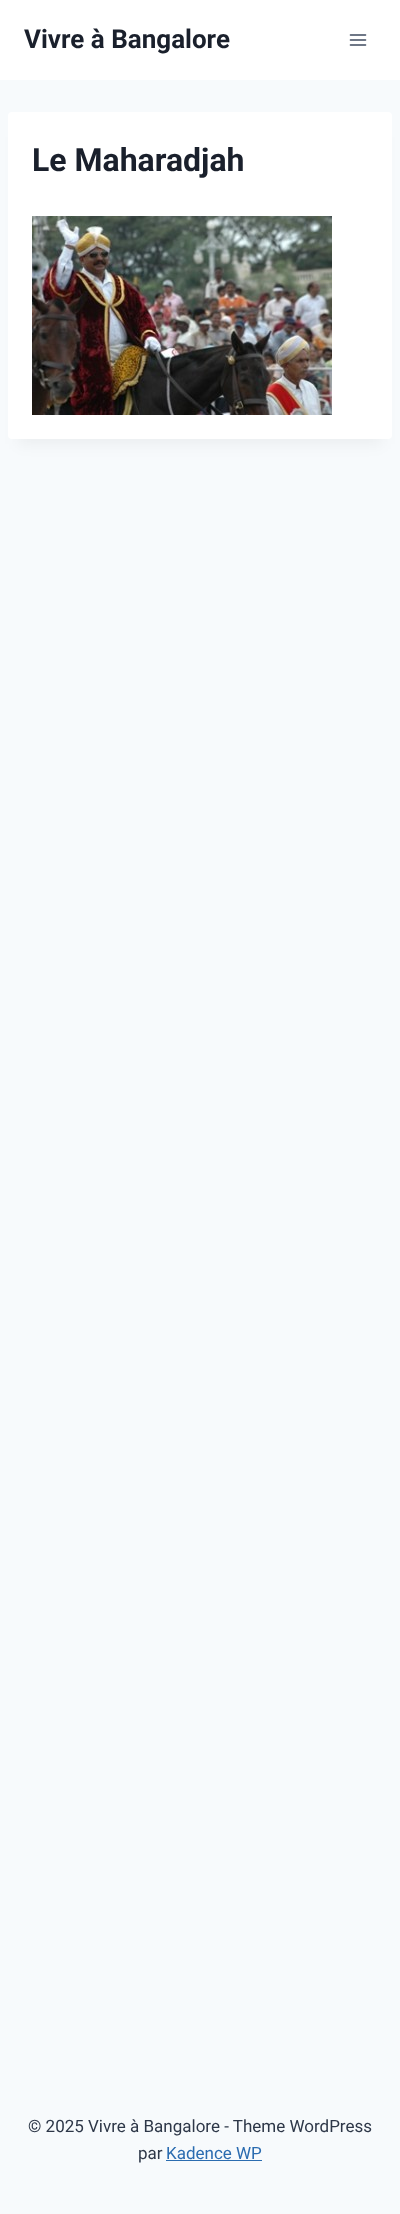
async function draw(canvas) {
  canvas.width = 400;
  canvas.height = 2214;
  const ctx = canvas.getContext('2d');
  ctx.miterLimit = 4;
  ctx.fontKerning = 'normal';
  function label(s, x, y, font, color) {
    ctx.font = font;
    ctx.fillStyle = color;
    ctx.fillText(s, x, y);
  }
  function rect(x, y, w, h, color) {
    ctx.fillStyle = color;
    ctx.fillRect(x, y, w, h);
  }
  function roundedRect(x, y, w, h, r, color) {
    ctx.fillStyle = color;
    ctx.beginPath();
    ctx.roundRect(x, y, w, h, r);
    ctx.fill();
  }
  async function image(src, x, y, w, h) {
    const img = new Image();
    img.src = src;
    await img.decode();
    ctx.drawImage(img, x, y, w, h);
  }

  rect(0, 0, 400, 2214, '#f7fafc');
  rect(0, 0, 400, 80, '#fff');
  label('Vivre à Bangalore', 24, 48, 'bold 26px Roboto', '#1a202c');
  await image('assets/img1.png', 349, 34, 18, 12);
  ctx.fillStyle = '#0000000d';
  ctx.filter = 'blur(7.5px)';
  ctx.beginPath();
  ctx.rect(18, 137, 364, 307);
  ctx.fill();
  ctx.filter = 'none';
  roundedRect(8, 112, 384, 327, 4, '#fff');
  label('Le Maharadjah', 32, 171, 'bold 32px Roboto', '#1a202c');
  await image('assets/img2.png', 32, 216, 300, 199);
  label('© 2025 Vivre à Bangalore - Theme WordPress', 28, 2132, '17px Roboto', '#2d3748');
  label('par', 138, 2159, '17px Roboto', '#2d3748');
  label('Kadence WP', 166, 2159, '17px Roboto', '#2b6cb0');
  rect(166, 2160, 96, 1, '#2b6cb0');
}

draw(document.querySelector('canvas'));
